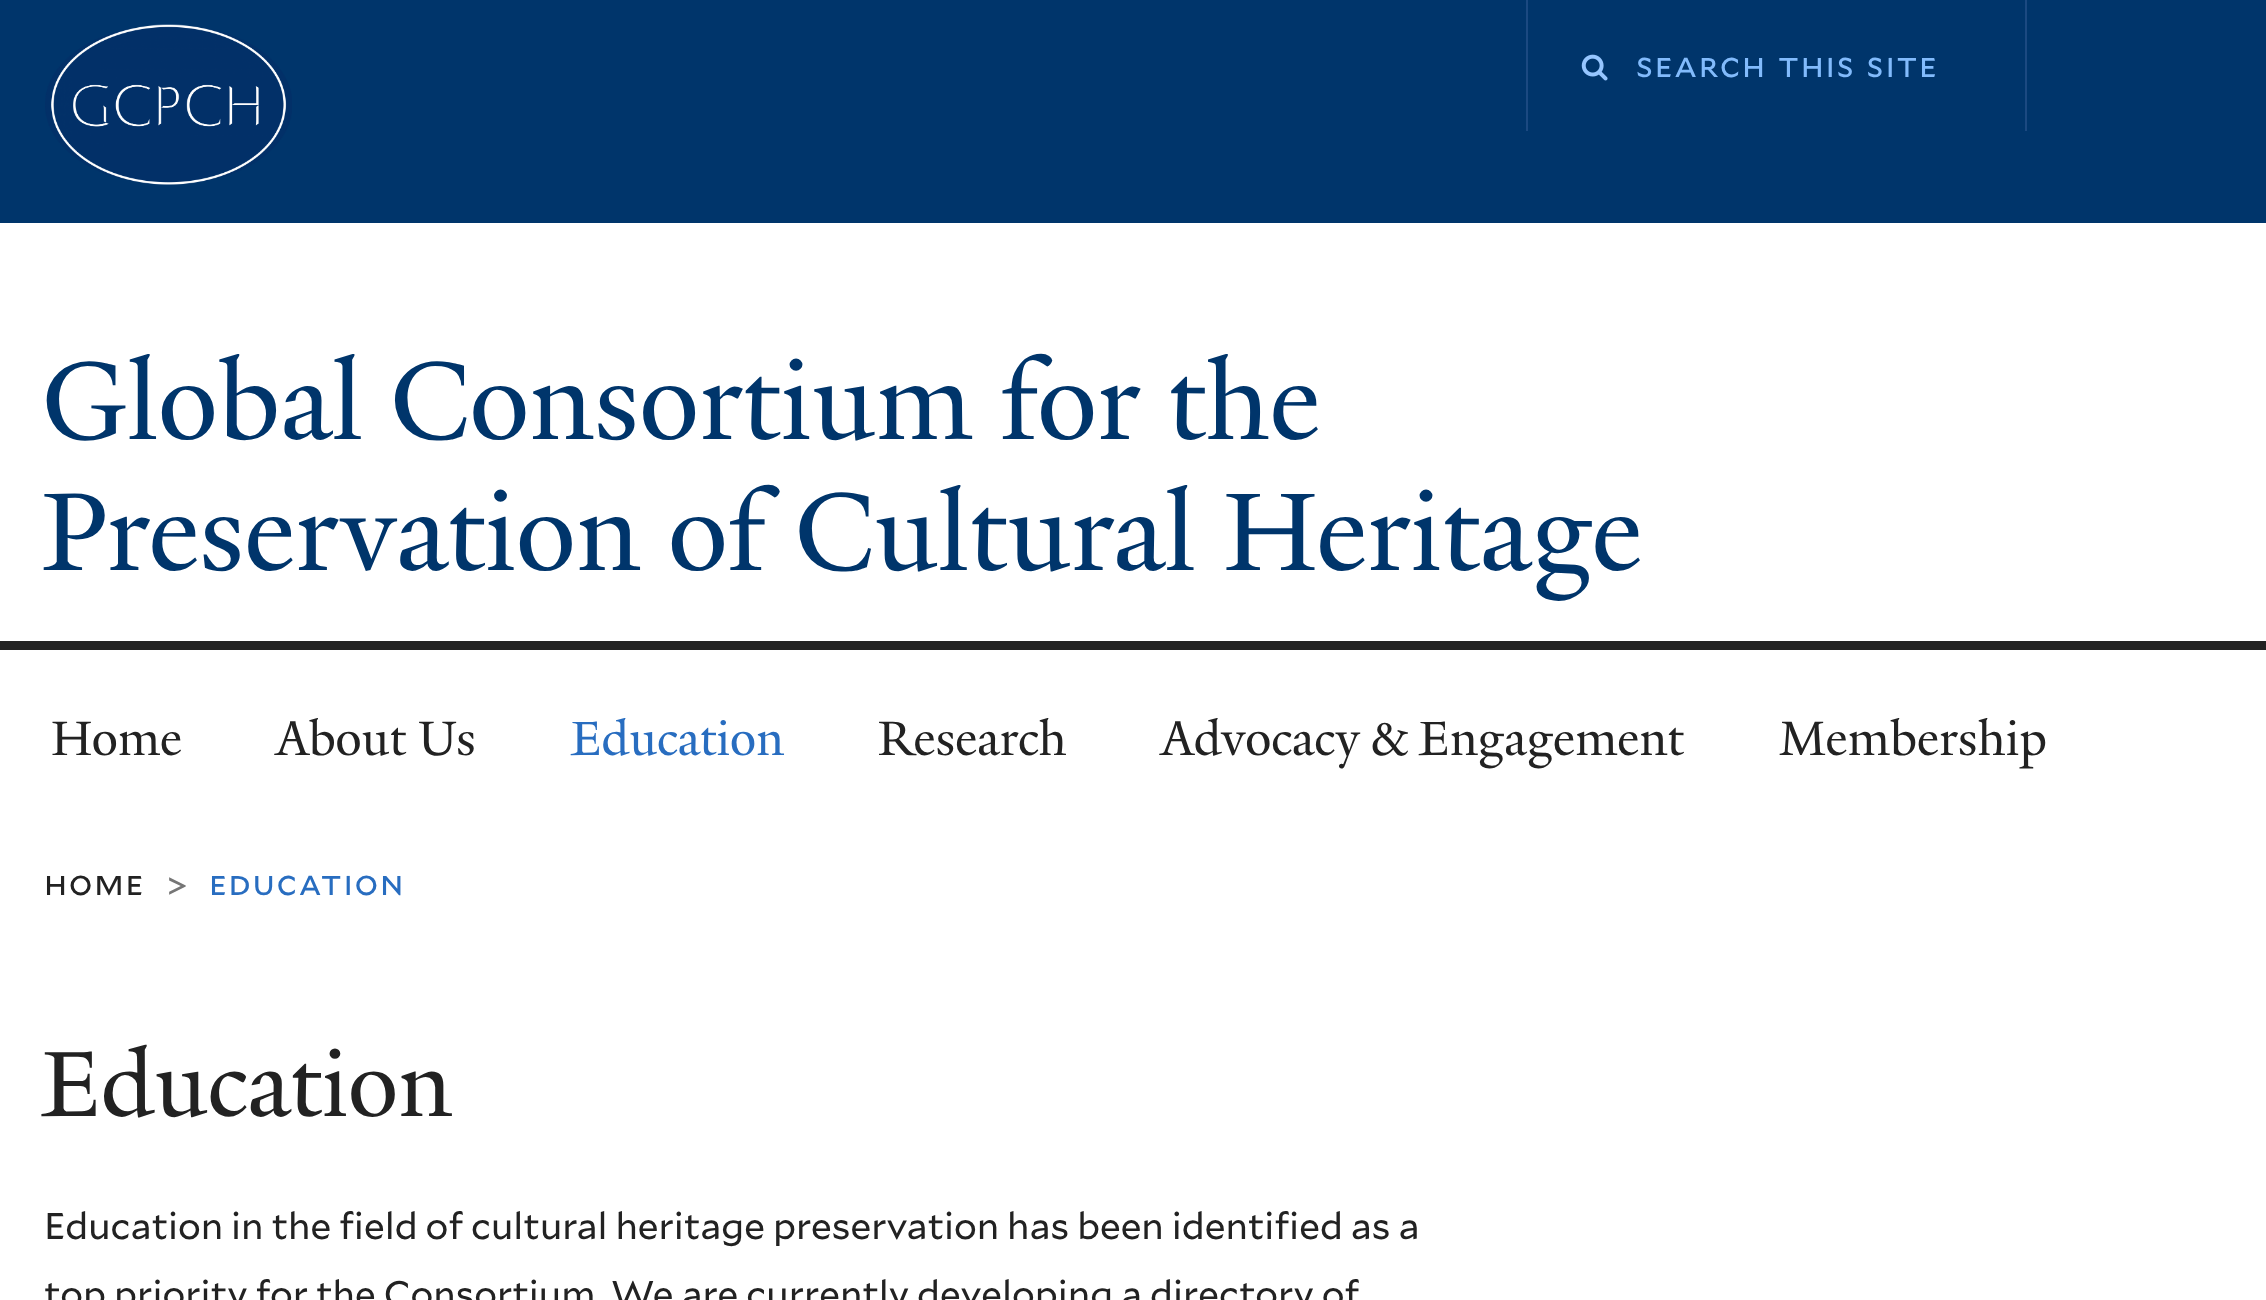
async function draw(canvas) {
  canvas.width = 2266;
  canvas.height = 1300;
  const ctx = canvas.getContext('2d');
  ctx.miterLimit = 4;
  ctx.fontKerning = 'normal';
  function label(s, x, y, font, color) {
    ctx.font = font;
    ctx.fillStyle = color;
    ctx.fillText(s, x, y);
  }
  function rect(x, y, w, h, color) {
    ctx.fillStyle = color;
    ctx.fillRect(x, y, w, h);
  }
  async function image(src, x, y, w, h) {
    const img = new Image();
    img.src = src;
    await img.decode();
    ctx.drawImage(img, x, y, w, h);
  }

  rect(0, 0, 2266, 1300, '#fff');
  rect(0, 0, 2266, 223, '#00356b');
  await image('assets/img1.png', 45, 24, 247, 161);
  rect(2025, 0, 2, 131, '#1b4981');
  rect(1526, 0, 2, 131, '#1b4981');
  await image('assets/img2.png', 1581, 54, 27, 27);
  ctx.letterSpacing = '1.75px';
  ctx.wordSpacing = '2px';
  label('search this site', 1636, 77, '34.25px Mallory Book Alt', '#82bbfc');
  ctx.letterSpacing = '0px';
  ctx.wordSpacing = '0px';
  label('Global Consortium for the', 42, 439, '119.9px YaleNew', '#00356b');
  label('Preservation of Cultural Heritage', 42, 570, '119.9px YaleNew', '#00356b');
  rect(0, 641, 2266, 9, '#222');
  label('Home', 51, 755, '52.25px YaleNew', '#222');
  label('About Us', 276, 755, '52.25px YaleNew', '#222');
  label('Education', 571, 755, '52.25px YaleNew', '#286dc0');
  label('Research', 878, 755, '52.25px YaleNew', '#222');
  label('Advocacy & Engagement', 1161, 755, '52.25px YaleNew', '#222');
  label('Membership', 1779, 755, '52.25px YaleNew', '#222');
  ctx.letterSpacing = '1.75px';
  label('home', 44, 895, '34.25px Mallory Book Alt', '#222');
  label('>', 167, 898, '34.25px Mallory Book', '#767676');
  label('education', 209, 895, '34.25px Mallory Book Alt', '#286dc0');
  ctx.letterSpacing = '0px';
  label('Education', 42, 1116, '100.5px YaleNew', '#222');
  label('Education in the field of cultural heritage preservation has been identified as a', 44, 1239, '37.05px Mallory Book', '#222');
  label('top priority for the Consortium. We are currently developing a directory of', 44, 1307, '37.05px Mallory Book', '#222');
}

draw(document.querySelector('canvas'));
